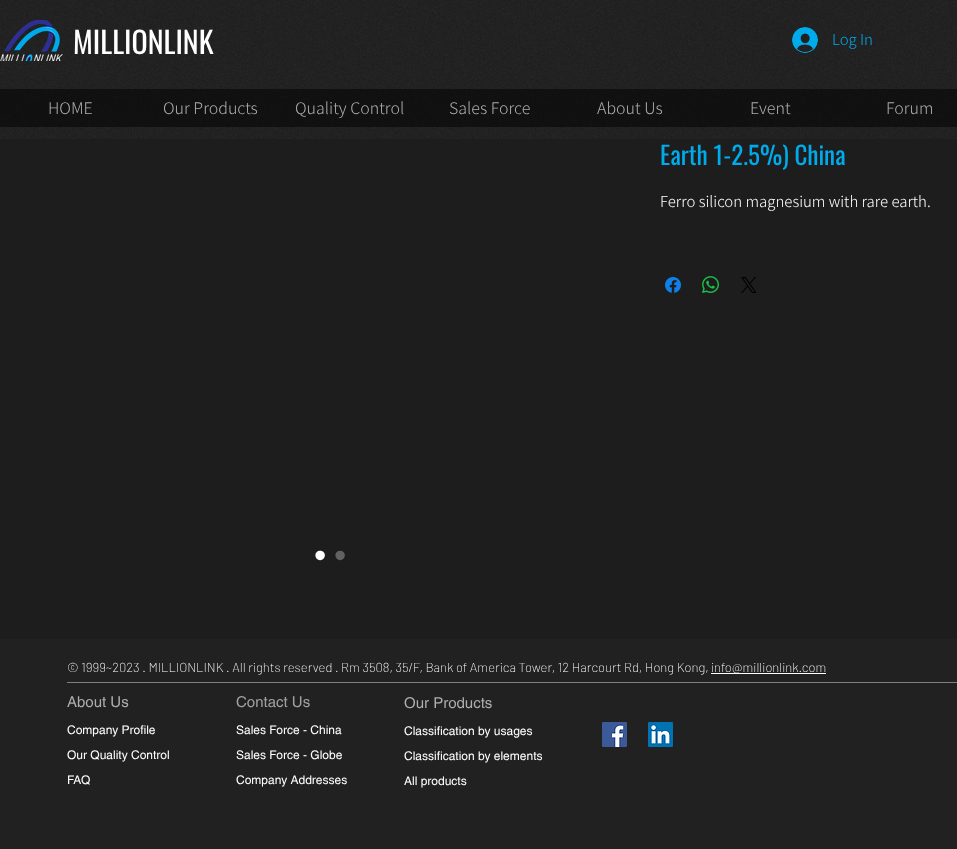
async function draw(canvas) {
  canvas.width = 957;
  canvas.height = 849;
  const ctx = canvas.getContext('2d');
  ctx.miterLimit = 4;
  ctx.fontKerning = 'normal';
  function label(s, x, y, font, color) {
    ctx.font = font;
    ctx.fillStyle = color;
    ctx.fillText(s, x, y);
  }
  function rect(x, y, w, h, color) {
    ctx.fillStyle = color;
    ctx.fillRect(x, y, w, h);
  }
  async function image(src, x, y, w, h) {
    const img = new Image();
    img.src = src;
    await img.decode();
    ctx.drawImage(img, x, y, w, h);
  }

  rect(0, 0, 957, 849, '#1d1d1d');
  rect(0, 0, 957, 139, '#232323b3');
  await image('assets/img1.png', 0, 0, 957, 139);
  await image('assets/img2.png', 0, 20, 63, 41);
  label('MILLIONLINK', 73, 54, '30px Oswald', '#fff');
  await image('assets/img3.png', 792, 27, 26, 26);
  label('Log In', 832, 45, '300 15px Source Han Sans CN', '#00abec');
  rect(0, 89, 957, 38, '#00000080');
  label('HOME', 48, 114, '300 16px Source Han Sans CN', '#adadad');
  label('Our Products', 163, 114, '300 16px Source Han Sans CN', '#adadad');
  label('Quality Control', 295, 114, '300 16px Source Han Sans CN', '#adadad');
  label('Sales Force', 449, 114, '300 16px Source Han Sans CN', '#adadad');
  label('About Us', 597, 114, '300 16px Source Han Sans CN', '#adadad');
  label('Event', 750, 114, '300 16px Source Han Sans CN', '#adadad');
  label('Forum', 886, 114, '300 16px Source Han Sans CN', '#adadad');
  label('Earth 1-2.5%) China', 660, 165, '25px Oswald', '#00abec');
  label('Ferro silicon magnesium with rare earth.', 660, 207, '300 15px Source Han Sans CN', '#fff');
  await image('assets/img4.png', 665, 277, 16, 16);
  await image('assets/img5.png', 702, 276, 17, 17);
  await image('assets/img6.png', 741, 277, 16, 16);
  label('•', 314, 567, '35px Liberation Sans', '#fff');
  label('•', 334, 567, '35px Liberation Sans', '#616161');
  rect(0, 639, 957, 210, '#212121');
  label('© 1999~2023 . MILLIONLINK . All rights reserved . Rm 3508, 35/F, Bank of America Tower, 12 Harcourt Rd, Hong Kong,', 67, 672, '200 13px Barlow', '#fff');
  rect(711, 673, 115, 1, '#fff');
  label('info@millionlink.com', 711, 672, '200 13px Barlow', '#fff');
  rect(67, 682, 890, 1, '#808080');
  label('About Us', 67, 707, '15px helvetica', '#adadad');
  label('Company Profile', 67, 734, '12px helvetica', '#fff');
  label('Our Quality Control', 67, 759, '12px helvetica', '#fff');
  label('FAQ', 67, 784, '12px helvetica', '#fff');
  label('Contact Us', 236, 707, '15px helvetica', '#a1a1a1');
  label('Sales Force - China', 236, 734, '12px helvetica', '#fff');
  label('Sales Force - Globe', 236, 759, '12px helvetica', '#fff');
  label('Company Addresses', 236, 784, '12px helvetica', '#fff');
  label('Our Products', 404, 708, '15px helvetica', '#adadad');
  label('Classification by usages', 404, 735, '12px helvetica', '#fff');
  label('Classification by elements', 404, 760, '12px helvetica', '#fff');
  label('All products', 404, 785, '12px helvetica', '#fff');
  await image('assets/img7.png', 602, 722, 25, 25);
  await image('assets/img8.png', 648, 722, 25, 25);
}

draw(document.querySelector('canvas'));
